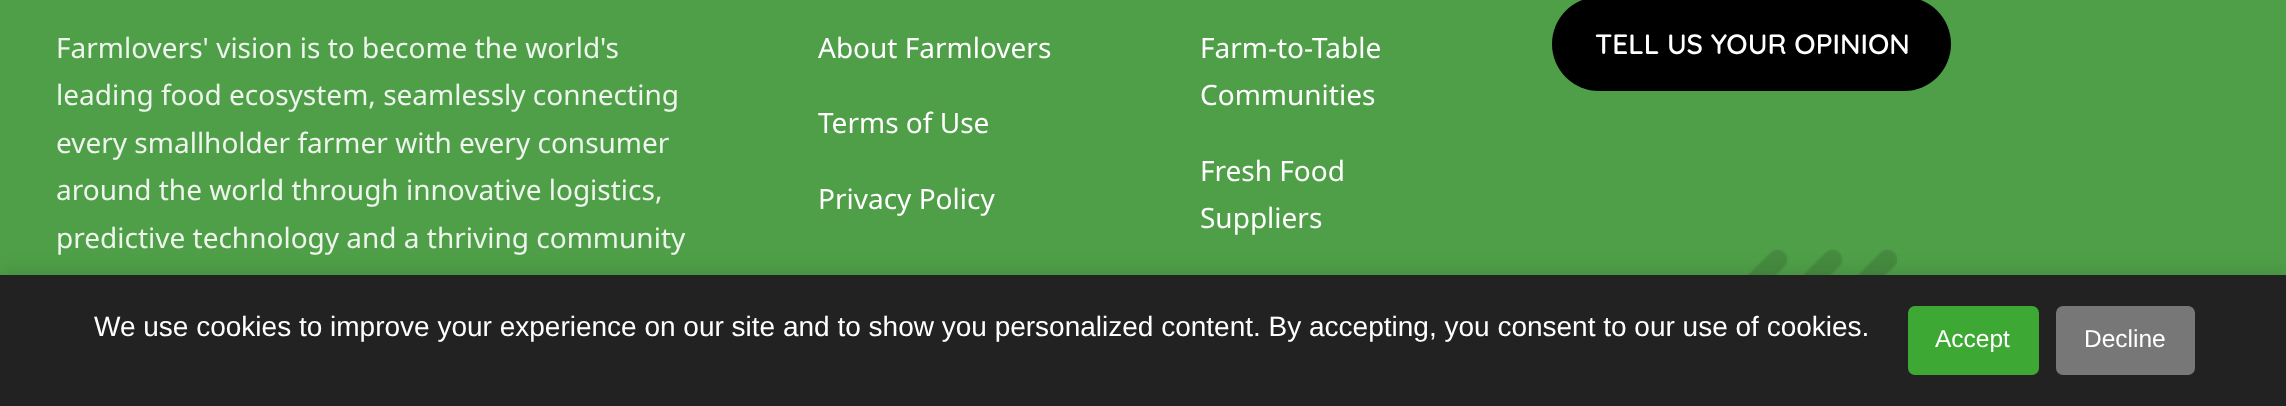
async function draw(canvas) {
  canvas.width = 2286;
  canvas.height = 406;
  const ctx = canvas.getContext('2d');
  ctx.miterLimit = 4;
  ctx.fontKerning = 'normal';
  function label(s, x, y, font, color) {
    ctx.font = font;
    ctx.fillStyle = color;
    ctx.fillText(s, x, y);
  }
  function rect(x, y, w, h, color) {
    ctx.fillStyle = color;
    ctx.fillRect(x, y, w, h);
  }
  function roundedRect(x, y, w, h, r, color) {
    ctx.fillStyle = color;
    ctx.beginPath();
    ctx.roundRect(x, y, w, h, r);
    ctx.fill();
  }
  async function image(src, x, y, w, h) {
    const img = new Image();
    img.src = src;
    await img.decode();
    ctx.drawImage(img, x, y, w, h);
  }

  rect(0, 0, 2286, 406, '#4f9f48');
  label('Farmlovers\' vision is to become the world\'s', 56, 58, '28px Noto Sans', '#edf5ed');
  label('leading food ecosystem, seamlessly connecting', 56, 105, '28px Noto Sans', '#edf5ed');
  label('every smallholder farmer with every consumer', 56, 153, '28px Noto Sans', '#edf5ed');
  label('around the world through innovative logistics,', 56, 200, '28px Noto Sans', '#edf5ed');
  label('predictive technology and a thriving community', 56, 248, '28px Noto Sans', '#edf5ed');
  label('About Farmlovers', 818, 58, '28px Noto Sans', '#fff');
  label('Terms of Use', 818, 133, '28px Noto Sans', '#fff');
  label('Privacy Policy', 818, 209, '28px Noto Sans', '#fff');
  label('Farm-to-Table', 1200, 58, '28px Noto Sans', '#fff');
  label('Communities', 1200, 105, '28px Noto Sans', '#fff');
  label('Fresh Food', 1200, 181, '28px Noto Sans', '#fff');
  label('Suppliers', 1200, 228, '28px Noto Sans', '#fff');
  roundedRect(1552, -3, 399, 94, 47, '#000');
  label('TELL US YOUR OPINION', 1595, 54, '600 28px Quicksand', '#fff');
  await image('assets/img1.png', 1748, 249, 149, 26);
  ctx.fillStyle = '#0000001a';
  ctx.filter = 'blur(9px)';
  ctx.beginPath();
  ctx.rect(0, 271, 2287, 132);
  ctx.fill();
  ctx.filter = 'none';
  rect(0, 275, 2286, 131, '#222');
  label('We use cookies to improve your experience on our site and to show you personalized content. By accepting, you consent to our use of cookies.', 94, 336, '28px Liberation Sans', '#fff');
  roundedRect(1908, 306, 131, 69, 7, '#3da833');
  label('Accept', 1935, 347, '24.5px Liberation Sans', '#fff');
  roundedRect(2056, 306, 139, 69, 7, '#777');
  label('Decline', 2084, 347, '24.5px Liberation Sans', '#fff');
}

draw(document.querySelector('canvas'));
